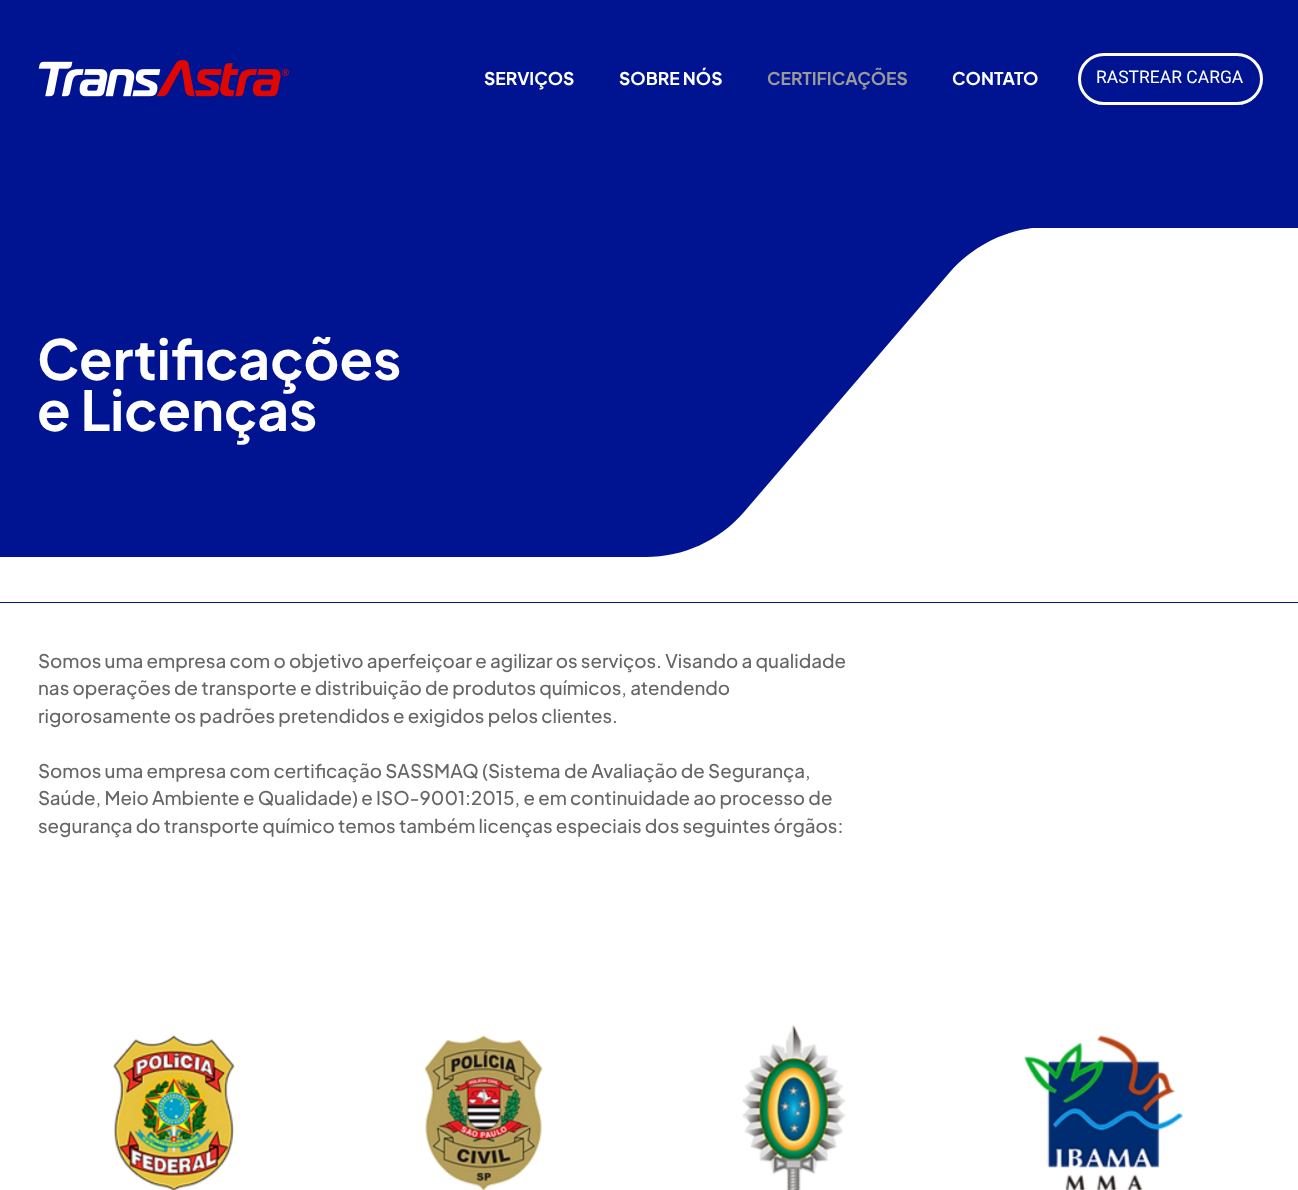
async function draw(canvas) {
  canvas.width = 1298;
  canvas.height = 1190;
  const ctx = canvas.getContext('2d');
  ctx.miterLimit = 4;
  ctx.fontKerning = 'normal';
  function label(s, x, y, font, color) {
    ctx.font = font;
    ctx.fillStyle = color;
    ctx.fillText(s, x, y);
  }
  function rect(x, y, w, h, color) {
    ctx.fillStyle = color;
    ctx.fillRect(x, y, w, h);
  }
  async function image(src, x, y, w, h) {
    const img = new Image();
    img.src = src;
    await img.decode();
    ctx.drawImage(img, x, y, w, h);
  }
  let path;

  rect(0, 0, 1298, 1190, '#fff');
  rect(0, 0, 1298, 603, '#001391');
  await image('assets/img1.png', 38, 60, 251, 37);
  label('SERVIÇOS', 484, 85, 'bold 17.5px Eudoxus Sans', '#fff');
  label('SOBRE NÓS', 619, 85, 'bold 17.5px Eudoxus Sans', '#fff');
  label('CERTIFICAÇÕES', 767, 85, 'bold 17.5px Eudoxus Sans', '#999');
  label('CONTATO', 952, 85, 'bold 17.5px Eudoxus Sans', '#fff');
  ctx.beginPath();
  ctx.roundRect(1079.5, 54.5, 182, 49, 24.5);
  ctx.strokeStyle = '#fff';
  ctx.lineWidth = 3;
  ctx.stroke();
  label('RASTREAR CARGA', 1096, 83, '17.5px Heebo', '#fff');
  ctx.save();
  ctx.beginPath();
  ctx.rect(0, 228, 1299, 375);
  ctx.clip();
  path = new Path2D('M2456 602V294C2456 257 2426 227 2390 227H1048C1010 227 975 244 950 272L744 512C719 541 683 557 646 557H-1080C-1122 557-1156 524-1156 482V602Z');
  ctx.fill(path);
  ctx.restore();
  label('Certificações', 37, 380, 'bold 55px Eudoxus Sans', '#fff');
  label('e Licenças', 37, 431, 'bold 55px Eudoxus Sans', '#fff');
  label('Somos uma empresa com o objetivo aperfeiçoar e agilizar os serviços. Visando a qualidade', 38, 668, '500 18.75px Eudoxus Sans', '#666');
  label('nas operações de transporte e distribuição de produtos químicos, atendendo', 38, 695, '500 18.75px Eudoxus Sans', '#666');
  label('rigorosamente os padrões pretendidos e exigidos pelos clientes.', 38, 723, '500 18.75px Eudoxus Sans', '#666');
  label('Somos uma empresa com certificação SASSMAQ (Sistema de Avaliação de Segurança,', 38, 778, '500 18.75px Eudoxus Sans', '#666');
  label('Saúde, Meio Ambiente e Qualidade) e ISO-9001:2015, e em continuidade ao processo de', 38, 805, '500 18.75px Eudoxus Sans', '#666');
  label('segurança do transporte químico temos também licenças especiais dos seguintes órgãos:', 38, 833, '500 18.75px Eudoxus Sans', '#666');
  await image('assets/img2.png', 113, 1035, 122, 155);
  await image('assets/img3.png', 424, 1035, 119, 155);
  await image('assets/img4.png', 742, 1025, 104, 165);
  await image('assets/img5.png', 1024, 1035, 159, 155);
}

draw(document.querySelector('canvas'));
